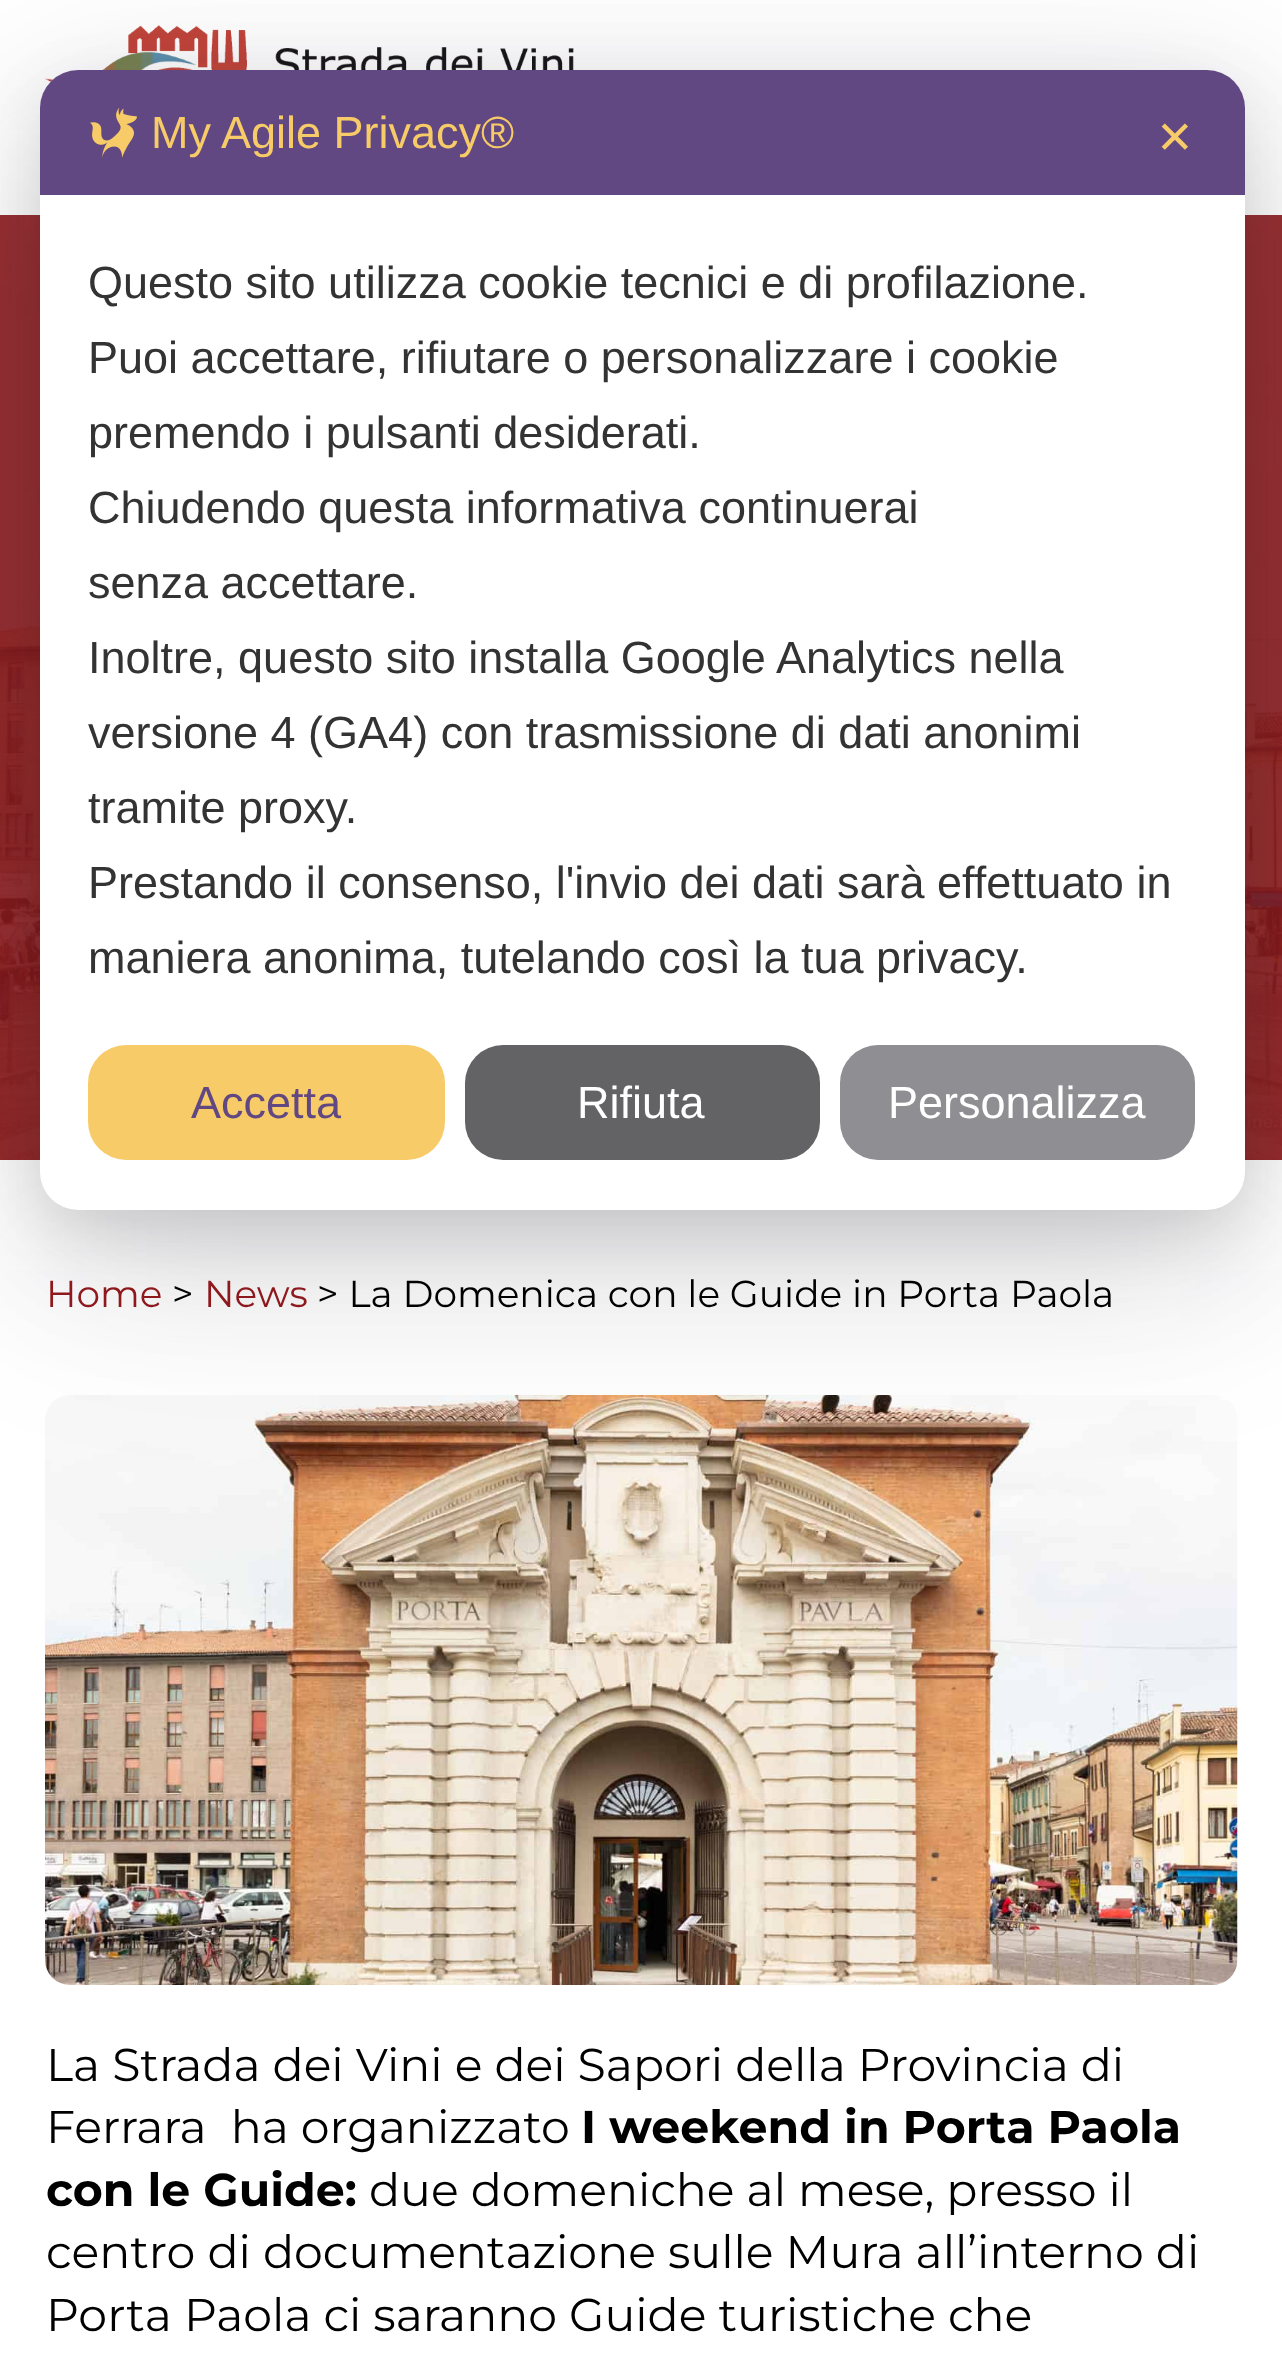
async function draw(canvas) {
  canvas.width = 1282;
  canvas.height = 2362;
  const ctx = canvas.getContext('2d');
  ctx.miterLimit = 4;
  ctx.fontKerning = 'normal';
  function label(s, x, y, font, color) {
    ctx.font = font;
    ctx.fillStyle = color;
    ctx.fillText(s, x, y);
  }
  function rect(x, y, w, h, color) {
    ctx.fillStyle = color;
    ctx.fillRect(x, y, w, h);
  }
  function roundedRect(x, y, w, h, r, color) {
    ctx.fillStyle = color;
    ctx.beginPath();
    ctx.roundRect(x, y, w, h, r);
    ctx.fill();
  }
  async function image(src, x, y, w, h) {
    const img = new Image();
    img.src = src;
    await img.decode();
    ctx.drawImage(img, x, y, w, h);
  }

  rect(0, 0, 1282, 2362, '#fff');
  await image('assets/img1.png', 45, 25, 529, 57);
  await image('assets/img3.png', 0, 215, 1282, 945);
  await image('assets/img4.png', 45, 1395, 1193, 590);
  ctx.fillStyle = '#11111a1a';
  ctx.filter = 'blur(100px)';
  ctx.beginPath();
  ctx.roundRect(40, 130, 1205, 1140, 38);
  ctx.fill();
  ctx.filter = 'none';
  ctx.filter = 'blur(70px)';
  ctx.beginPath();
  ctx.roundRect(40, 110, 1205, 1140, 38);
  ctx.fill();
  ctx.filter = 'none';
  ctx.filter = 'blur(30px)';
  ctx.beginPath();
  ctx.roundRect(40, 90, 1205, 1140, 38);
  ctx.fill();
  ctx.filter = 'none';
  roundedRect(40, 70, 1205, 1140, 38, '#fff');
  ctx.fillStyle = '#624882';
  ctx.beginPath();
  ctx.roundRect(40, 70, 1205, 125, [38, 38, 0, 0]);
  ctx.fill();
  await image('assets/img2.png', 90, 108, 47, 50);
  label('My Agile Privacy®', 151, 148, '45px Liberation Sans', '#f7cb67');
  label('✕', 1156, 153, '45px DejaVu Sans', '#f7cb67');
  label('Questo sito utilizza cookie tecnici e di profilazione.', 88, 298, '45px Liberation Sans', '#333');
  label('Puoi accettare, rifiutare o personalizzare i cookie', 88, 373, '45px Liberation Sans', '#333');
  label('premendo i pulsanti desiderati.', 88, 448, '45px Liberation Sans', '#333');
  label('Chiudendo questa informativa continuerai', 88, 523, '45px Liberation Sans', '#333');
  label('senza accettare.', 88, 598, '45px Liberation Sans', '#333');
  label('Inoltre, questo sito installa Google Analytics nella', 88, 673, '45px Liberation Sans', '#333');
  label('versione 4 (GA4) con trasmissione di dati anonimi', 88, 748, '45px Liberation Sans', '#333');
  label('tramite proxy.', 88, 823, '45px Liberation Sans', '#333');
  label('Prestando il consenso, l\'invio dei dati sarà effettuato in', 88, 898, '45px Liberation Sans', '#333');
  label('maniera anonima, tutelando così la tua privacy.', 88, 973, '45px Liberation Sans', '#333');
  roundedRect(88, 1045, 357, 115, 38, '#f7cb67');
  label('Accetta', 191, 1118, '45px Liberation Sans', '#624882');
  roundedRect(465, 1045, 355, 115, 38, '#636366');
  label('Rifiuta', 577, 1118, '45px Liberation Sans', '#fff');
  roundedRect(840, 1045, 355, 115, 38, '#8e8e93');
  label('Personalizza', 888, 1118, '45px Liberation Sans', '#fff');
  label('Home', 46, 1307, '37.5px Montserrat', '#8d191d');
  label('>', 172, 1307, '37.5px Montserrat', '#000');
  label('News', 204, 1307, '37.5px Montserrat', '#8d191d');
  label('> La Domenica con le Guide in Porta Paola', 317, 1307, '37.5px Montserrat', '#000');
  label('La Strada dei Vini e dei Sapori della Provincia di', 46, 2081, '45.9px Montserrat', '#000');
  label('Ferrara  ha organizzato', 46, 2143, '45.9px Montserrat', '#000');
  label('I weekend in Porta Paola', 581, 2143, 'bold 45.9px Montserrat', '#000');
  label('con le Guide:', 46, 2206, 'bold 45.9px Montserrat', '#000');
  label('due domeniche al mese, presso il', 369, 2206, '45.9px Montserrat', '#000');
  label('centro di documentazione sulle Mura all’interno di', 46, 2268, '45.9px Montserrat', '#000');
  label('Porta Paola ci saranno Guide turistiche che', 46, 2331, '45.9px Montserrat', '#000');
}

draw(document.querySelector('canvas'));
